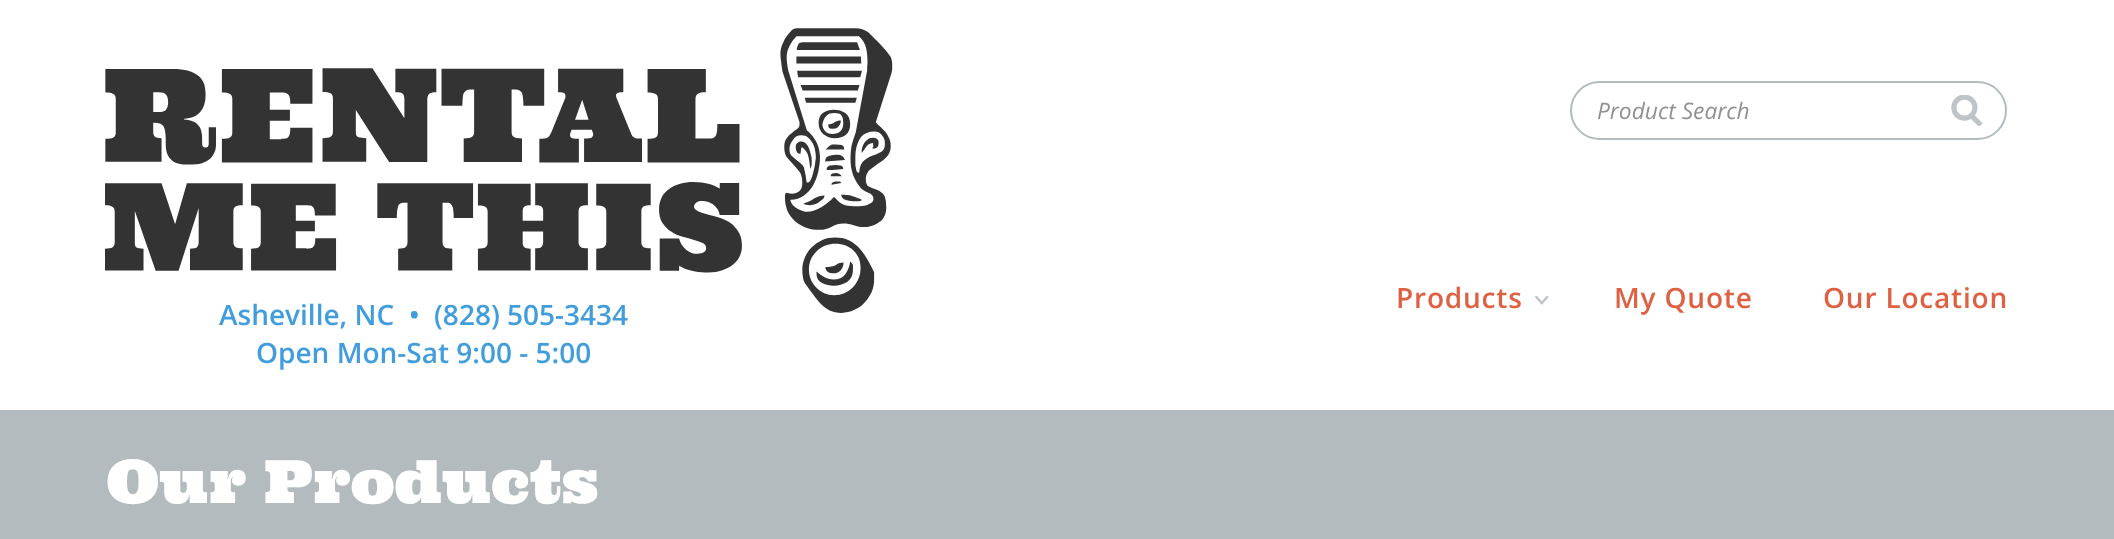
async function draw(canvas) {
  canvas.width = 2114;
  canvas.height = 539;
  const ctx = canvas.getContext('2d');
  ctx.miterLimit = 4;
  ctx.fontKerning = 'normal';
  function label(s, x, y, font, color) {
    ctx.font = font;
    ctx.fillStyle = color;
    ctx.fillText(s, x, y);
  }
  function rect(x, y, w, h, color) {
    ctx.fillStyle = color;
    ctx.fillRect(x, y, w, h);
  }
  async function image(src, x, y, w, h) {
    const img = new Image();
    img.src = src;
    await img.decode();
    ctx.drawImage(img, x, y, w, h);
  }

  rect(0, 0, 2114, 539, '#fff');
  ctx.beginPath();
  ctx.roundRect(1571, 82, 435, 57, 28.5);
  ctx.strokeStyle = '#b3bbbf';
  ctx.lineWidth = 2;
  ctx.stroke();
  label('Product Search', 1597, 119, 'italic 22.75px Open Sans', '#919191');
  await image('assets/img1.png', 1951, 95, 32, 31);
  ctx.letterSpacing = '0.8px';
  label('Products', 1396, 308, '600 28px Open Sans', '#dd6142');
  await image('assets/img2.png', 1535, 296, 14, 9);
  label('My Quote', 1614, 308, '600 28px Open Sans', '#dd6142');
  label('Our Location', 1823, 308, '600 28px Open Sans', '#dd6142');
  await image('assets/img3.png', 105, 28, 788, 285);
  ctx.letterSpacing = '0px';
  label('Asheville, NC', 219, 325, '600 28px Open Sans', '#429ddd');
  label('•', 409, 325, '600 28px Open Sans', '#429ddd');
  label('(828) 505-3434', 434, 325, '600 28px Open Sans', '#429ddd');
  label('Open Mon-Sat 9:00 - 5:00', 256, 363, '600 28px Open Sans', '#429ddd');
  rect(0, 410, 2114, 129, '#b3bbbf');
  label('Our Products', 106, 503, '59.5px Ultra', '#fff');
}

draw(document.querySelector('canvas'));
